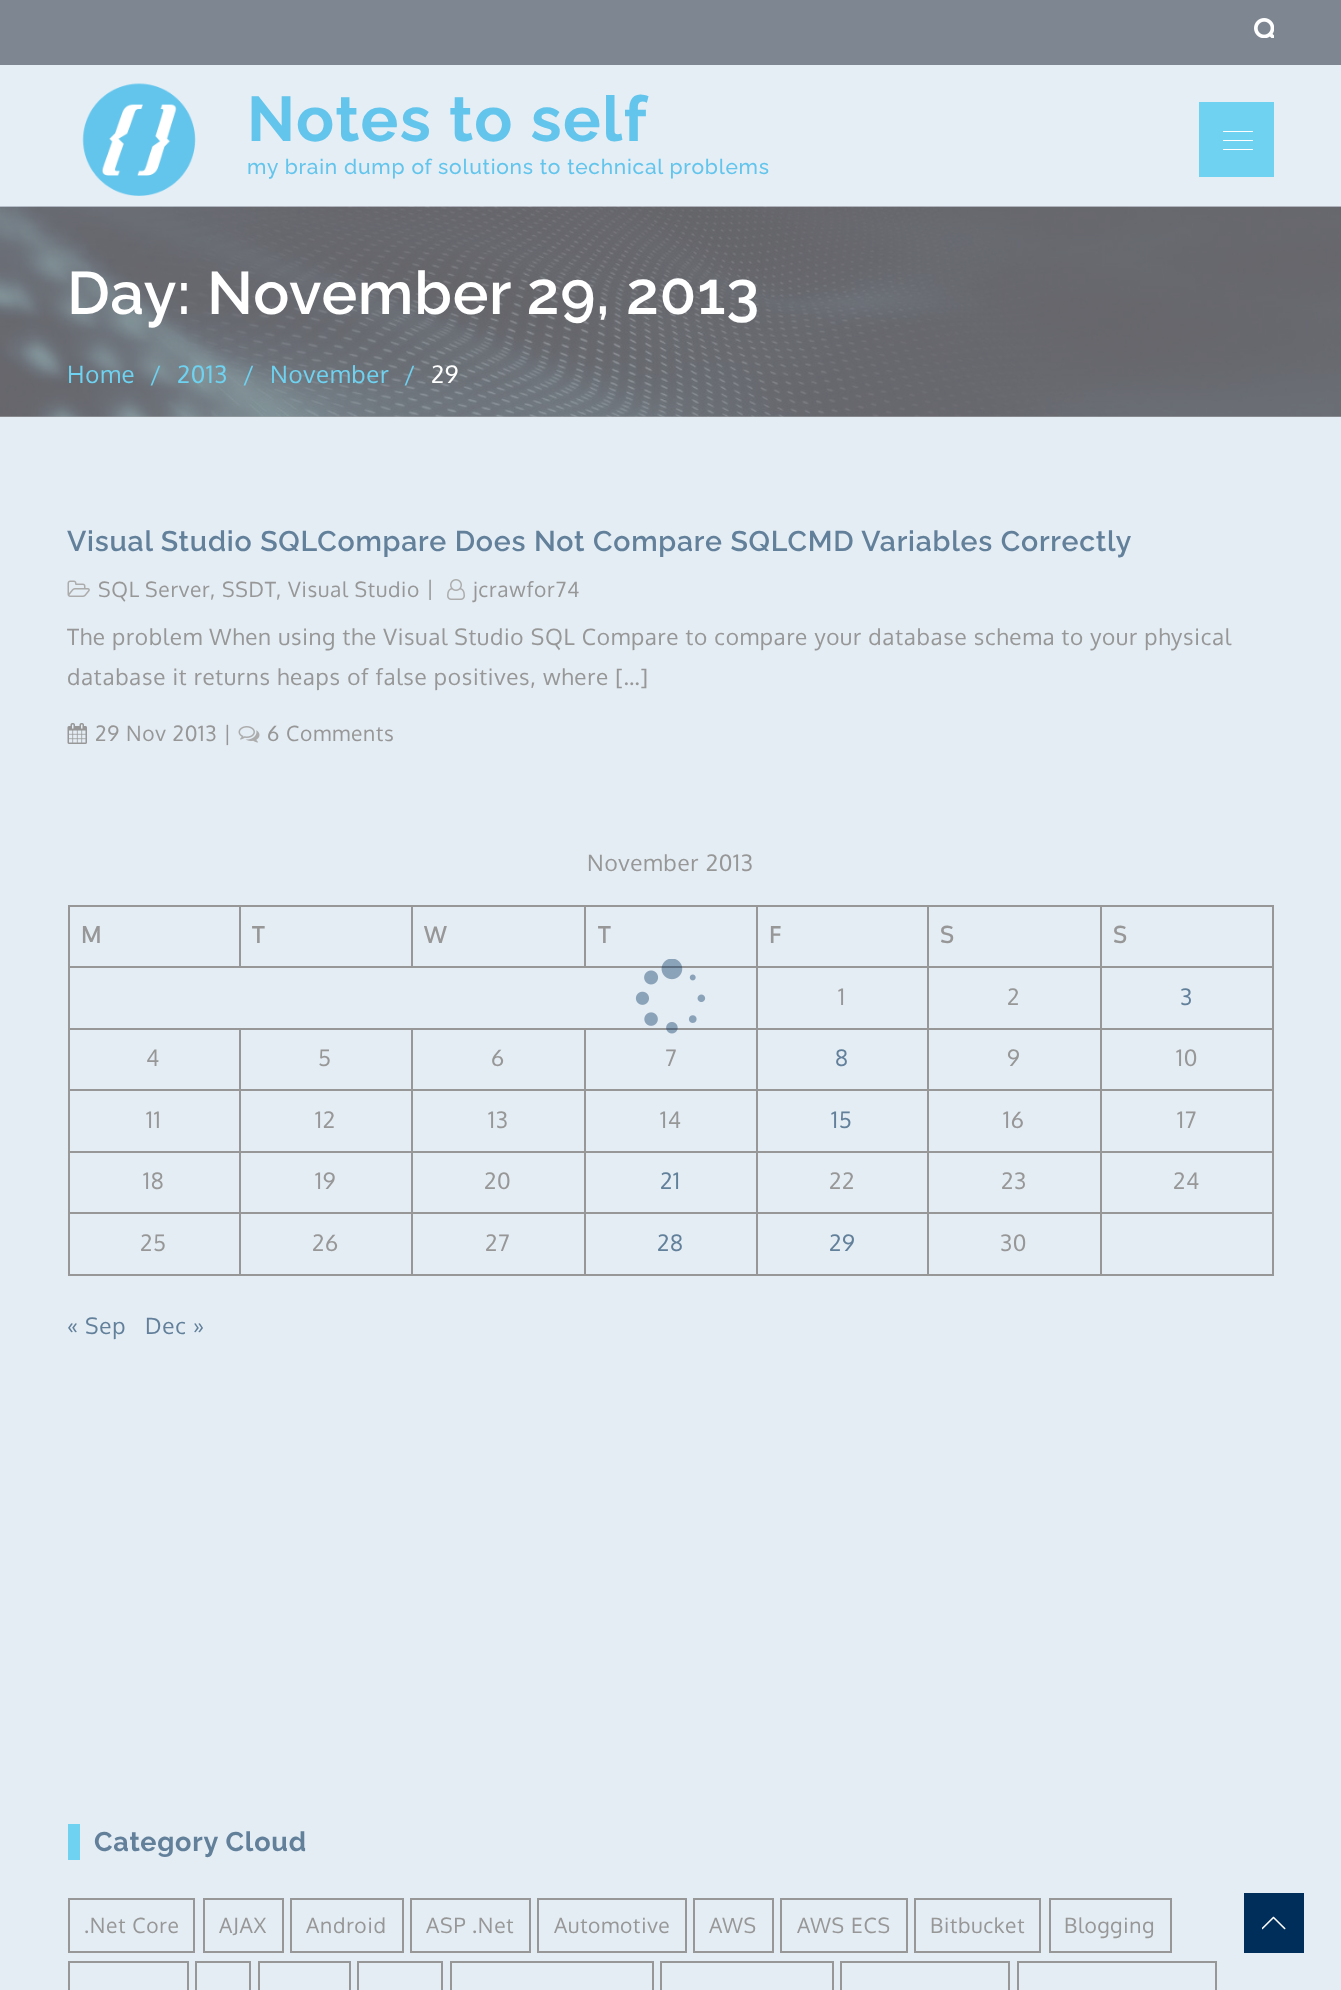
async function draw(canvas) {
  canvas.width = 1341;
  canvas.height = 1990;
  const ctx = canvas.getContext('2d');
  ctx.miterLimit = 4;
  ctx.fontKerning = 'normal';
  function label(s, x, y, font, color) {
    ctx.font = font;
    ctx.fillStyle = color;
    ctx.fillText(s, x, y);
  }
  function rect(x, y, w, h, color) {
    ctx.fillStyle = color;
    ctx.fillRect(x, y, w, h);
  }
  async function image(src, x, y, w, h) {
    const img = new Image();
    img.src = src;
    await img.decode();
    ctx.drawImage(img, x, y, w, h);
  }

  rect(0, 0, 1341, 1990, '#e4edf4');
  rect(0, 416, 1341, 1, '#a4a8ac');
  rect(0, 0, 1341, 65, '#7e8692');
  await image('assets/img1.png', 1254, 18, 20, 20);
  await image('assets/img3.png', 0, 206, 1341, 211);
  rect(0, 65, 1341, 142, '#ffffff1a');
  await image('assets/img2.png', 82, 83, 114, 113);
  ctx.letterSpacing = '1.5px';
  label('Notes to self', 247, 141, 'bold 63px Raleway', '#63c5ec');
  ctx.letterSpacing = '0.75px';
  label('my brain dump of solutions to technical problems', 247, 174, '500 21px Raleway', '#63c5ec');
  rect(1199, 102, 75, 75, '#6ed2f0');
  rect(1223, 131, 30, 1, '#fff');
  rect(1223, 140, 30, 1, '#fff');
  rect(1223, 149, 30, 1, '#fff');
  label('Day: November 29, 2013', 67, 314, '600 60px Raleway', '#fff');
  label('Home', 67, 383, '24px Oxygen', '#6ed2f0');
  label('/', 150, 383, '24px Oxygen', '#6ed2f0');
  label('2013', 177, 383, '24px Oxygen', '#6ed2f0');
  label('/', 243, 383, '24px Oxygen', '#6ed2f0');
  label('November', 270, 383, '24px Oxygen', '#6ed2f0');
  label('/', 404, 383, '24px Oxygen', '#6ed2f0');
  label('29', 431, 383, '24px Oxygen', '#fff');
  label('Visual Studio SQLCompare Does Not Compare SQLCMD Variables Correctly', 67, 551, '600 28.5px Raleway', '#63809b');
  await image('assets/img4.png', 67, 580, 23, 17);
  ctx.wordSpacing = '-1px';
  label('SQL Server', 98, 597, '21px Oxygen', '#979797');
  ctx.wordSpacing = '0px';
  label(', SSDT', 210, 597, '21px Oxygen', '#979797');
  label(', Visual Studio', 276, 597, '21px Oxygen', '#979797');
  label('|', 426, 596, '21px Oxygen', '#979797');
  await image('assets/img5.png', 447, 579, 18, 21);
  label('jcrawfor74', 473, 597, '21px Oxygen', '#979797');
  label('The problem When using the Visual Studio SQL Compare to compare your database schema to your physical', 67, 645, '22.5px Oxygen', '#979797');
  label('database it returns heaps of false positives, where […]', 67, 685, '22.5px Oxygen', '#979797');
  await image('assets/img6.png', 67, 723, 20, 21);
  label('29 Nov 2013 |', 95, 741, '21px Oxygen', '#979797');
  await image('assets/img7.png', 238, 726, 22, 17);
  label('6 Comments', 267, 741, '21px Oxygen', '#979797');
  label('November 2013', 587, 871, '22.5px Oxygen', '#979797');
  rect(1100, 905, 174, 2, '#979797');
  rect(1100, 966, 174, 2, '#979797');
  rect(1100, 1028, 174, 2, '#979797');
  rect(1100, 1089, 174, 2, '#979797');
  rect(1100, 1151, 174, 2, '#979797');
  rect(1100, 1212, 174, 2, '#979797');
  rect(1272, 1212, 2, 63, '#979797');
  rect(1100, 1274, 174, 2, '#979797');
  rect(1100, 1212, 2, 63, '#979797');
  rect(927, 1212, 174, 2, '#979797');
  rect(1100, 1151, 2, 63, '#979797');
  rect(927, 1151, 174, 2, '#979797');
  rect(1100, 1089, 2, 63, '#979797');
  rect(927, 1089, 174, 2, '#979797');
  rect(1100, 1028, 2, 63, '#979797');
  rect(927, 1028, 174, 2, '#979797');
  rect(1100, 966, 2, 63, '#979797');
  rect(927, 966, 174, 2, '#979797');
  rect(1100, 905, 2, 63, '#979797');
  rect(927, 905, 174, 2, '#979797');
  rect(927, 1274, 174, 2, '#979797');
  rect(927, 1212, 2, 63, '#979797');
  rect(756, 1212, 173, 2, '#979797');
  rect(927, 1151, 2, 63, '#979797');
  rect(756, 1151, 173, 2, '#979797');
  rect(927, 1089, 2, 63, '#979797');
  rect(756, 1089, 173, 2, '#979797');
  rect(927, 1028, 2, 63, '#979797');
  rect(756, 1028, 173, 2, '#979797');
  rect(927, 966, 2, 63, '#979797');
  rect(756, 966, 173, 2, '#979797');
  rect(927, 905, 2, 63, '#979797');
  rect(756, 905, 173, 2, '#979797');
  rect(756, 1274, 173, 2, '#979797');
  rect(756, 1212, 2, 63, '#979797');
  rect(584, 1212, 174, 2, '#979797');
  rect(756, 1151, 2, 63, '#979797');
  rect(584, 1151, 174, 2, '#979797');
  rect(756, 1089, 2, 63, '#979797');
  rect(584, 1089, 174, 2, '#979797');
  rect(756, 1028, 2, 63, '#979797');
  rect(584, 1028, 174, 2, '#979797');
  rect(756, 966, 2, 63, '#979797');
  rect(68, 966, 690, 2, '#979797');
  rect(756, 905, 2, 63, '#979797');
  rect(584, 905, 174, 2, '#979797');
  rect(584, 905, 2, 63, '#979797');
  rect(411, 905, 174, 2, '#979797');
  rect(411, 905, 2, 63, '#979797');
  rect(239, 905, 174, 2, '#979797');
  rect(239, 905, 2, 63, '#979797');
  rect(68, 905, 172, 2, '#979797');
  rect(584, 1274, 174, 2, '#979797');
  rect(584, 1212, 2, 63, '#979797');
  rect(411, 1212, 174, 2, '#979797');
  rect(584, 1151, 2, 63, '#979797');
  rect(411, 1151, 174, 2, '#979797');
  rect(584, 1089, 2, 63, '#979797');
  rect(411, 1089, 174, 2, '#979797');
  rect(584, 1028, 2, 63, '#979797');
  rect(411, 1028, 174, 2, '#979797');
  rect(411, 1274, 174, 2, '#979797');
  rect(411, 1212, 2, 63, '#979797');
  rect(239, 1212, 174, 2, '#979797');
  rect(411, 1151, 2, 63, '#979797');
  rect(239, 1151, 174, 2, '#979797');
  rect(411, 1089, 2, 63, '#979797');
  rect(239, 1089, 174, 2, '#979797');
  rect(411, 1028, 2, 63, '#979797');
  rect(239, 1028, 174, 2, '#979797');
  rect(239, 1274, 174, 2, '#979797');
  rect(239, 1212, 2, 63, '#979797');
  rect(68, 1212, 172, 2, '#979797');
  rect(239, 1151, 2, 63, '#979797');
  rect(68, 1151, 172, 2, '#979797');
  rect(239, 1089, 2, 63, '#979797');
  rect(68, 1089, 172, 2, '#979797');
  rect(239, 1028, 2, 63, '#979797');
  rect(68, 1028, 172, 2, '#979797');
  rect(68, 1274, 172, 2, '#979797');
  rect(68, 1212, 2, 63, '#979797');
  rect(68, 1151, 2, 63, '#979797');
  rect(68, 1089, 2, 63, '#979797');
  rect(68, 1028, 2, 63, '#979797');
  rect(68, 966, 2, 63, '#979797');
  rect(68, 905, 2, 63, '#979797');
  label('M', 81, 943, 'bold 22.5px Oxygen', '#979797');
  label('T', 252, 943, 'bold 22.5px Oxygen', '#979797');
  label('W', 424, 943, 'bold 22.5px Oxygen', '#979797');
  label('T', 598, 943, 'bold 22.5px Oxygen', '#979797');
  label('F', 769, 943, 'bold 22.5px Oxygen', '#979797');
  label('S', 940, 943, 'bold 22.5px Oxygen', '#979797');
  rect(1272, 1151, 2, 63, '#979797');
  rect(1272, 1089, 2, 63, '#979797');
  rect(1272, 1028, 2, 63, '#979797');
  rect(1272, 966, 2, 63, '#979797');
  rect(1272, 905, 2, 63, '#979797');
  label('S', 1113, 943, 'bold 22.5px Oxygen', '#979797');
  label('1', 838, 1005, '22.5px Oxygen', '#979797');
  label('2', 1007, 1005, '22.5px Oxygen', '#979797');
  label('3', 1180, 1005, '22.5px Oxygen', '#63809b');
  label('4', 146, 1066, '22.5px Oxygen', '#979797');
  label('5', 318, 1066, '22.5px Oxygen', '#979797');
  label('6', 491, 1066, '22.5px Oxygen', '#979797');
  label('7', 665, 1066, '22.5px Oxygen', '#979797');
  label('8', 835, 1066, '22.5px Oxygen', '#63809b');
  label('9', 1007, 1066, '22.5px Oxygen', '#979797');
  label('10', 1176, 1066, '22.5px Oxygen', '#979797');
  label('11', 146, 1128, '22.5px Oxygen', '#979797');
  label('12', 315, 1128, '22.5px Oxygen', '#979797');
  label('13', 488, 1128, '22.5px Oxygen', '#979797');
  label('14', 660, 1128, '22.5px Oxygen', '#979797');
  label('15', 831, 1128, '22.5px Oxygen', '#63809b');
  label('16', 1003, 1128, '22.5px Oxygen', '#979797');
  label('17', 1177, 1128, '22.5px Oxygen', '#979797');
  label('18', 143, 1189, '22.5px Oxygen', '#979797');
  label('19', 315, 1189, '22.5px Oxygen', '#979797');
  label('20', 484, 1189, '22.5px Oxygen', '#979797');
  label('21', 660, 1189, '22.5px Oxygen', '#63809b');
  label('22', 829, 1189, '22.5px Oxygen', '#979797');
  label('23', 1001, 1189, '22.5px Oxygen', '#979797');
  label('24', 1173, 1189, '22.5px Oxygen', '#979797');
  label('25', 140, 1251, '22.5px Oxygen', '#979797');
  label('26', 312, 1251, '22.5px Oxygen', '#979797');
  label('27', 485, 1251, '22.5px Oxygen', '#979797');
  label('28', 657, 1251, '22.5px Oxygen', '#63809b');
  label('29', 829, 1251, '22.5px Oxygen', '#63809b');
  label('30', 1000, 1251, '22.5px Oxygen', '#979797');
  label('« Sep', 67, 1334, '22.5px Oxygen', '#63809b');
  label('Dec »', 145, 1334, '22.5px Oxygen', '#63809b');
  rect(68, 1824, 12, 36, '#6ed2f0');
  label('Category Cloud', 94, 1851, 'bold 27px Raleway', '#63809b');
  ctx.strokeStyle = '#979797';
  ctx.lineWidth = 2;
  ctx.strokeRect(69, 1899, 125, 53);
  label('.Net Core', 84, 1933, '21px Oxygen', '#979797');
  ctx.strokeRect(204, 1899, 79, 53);
  label('AJAX', 219, 1933, '21px Oxygen', '#979797');
  ctx.strokeRect(291, 1899, 112, 53);
  label('Android', 306, 1933, '21px Oxygen', '#979797');
  ctx.strokeRect(411, 1899, 119, 53);
  label('ASP .Net', 426, 1933, '21px Oxygen', '#979797');
  ctx.strokeRect(538, 1899, 148, 53);
  label('Automotive', 554, 1933, '21px Oxygen', '#979797');
  ctx.strokeRect(694, 1899, 79, 53);
  label('AWS', 709, 1933, '21px Oxygen', '#979797');
  ctx.strokeRect(781, 1899, 126, 53);
  label('AWS ECS', 797, 1933, '21px Oxygen', '#979797');
  ctx.strokeRect(915, 1899, 125, 53);
  label('Bitbucket', 930, 1933, '21px Oxygen', '#979797');
  ctx.strokeRect(1050, 1899, 121, 53);
  label('Blogging', 1064, 1933, '21px Oxygen', '#979797');
  ctx.strokeRect(69, 1962, 119, 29);
  ctx.strokeRect(196, 1962, 54, 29);
  ctx.strokeRect(259, 1962, 91, 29);
  ctx.strokeRect(358, 1962, 84, 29);
  ctx.strokeRect(451, 1962, 202, 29);
  ctx.strokeRect(661, 1962, 172, 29);
  ctx.strokeRect(841, 1962, 168, 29);
  ctx.strokeRect(1018, 1962, 198, 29);
  await image('assets/img8.png', 635, 959, 71, 75);
  rect(1244, 1893, 60, 60, '#002e5b');
  await image('assets/img9.png', 1262, 1916, 24, 14);
}

draw(document.querySelector('canvas'));
